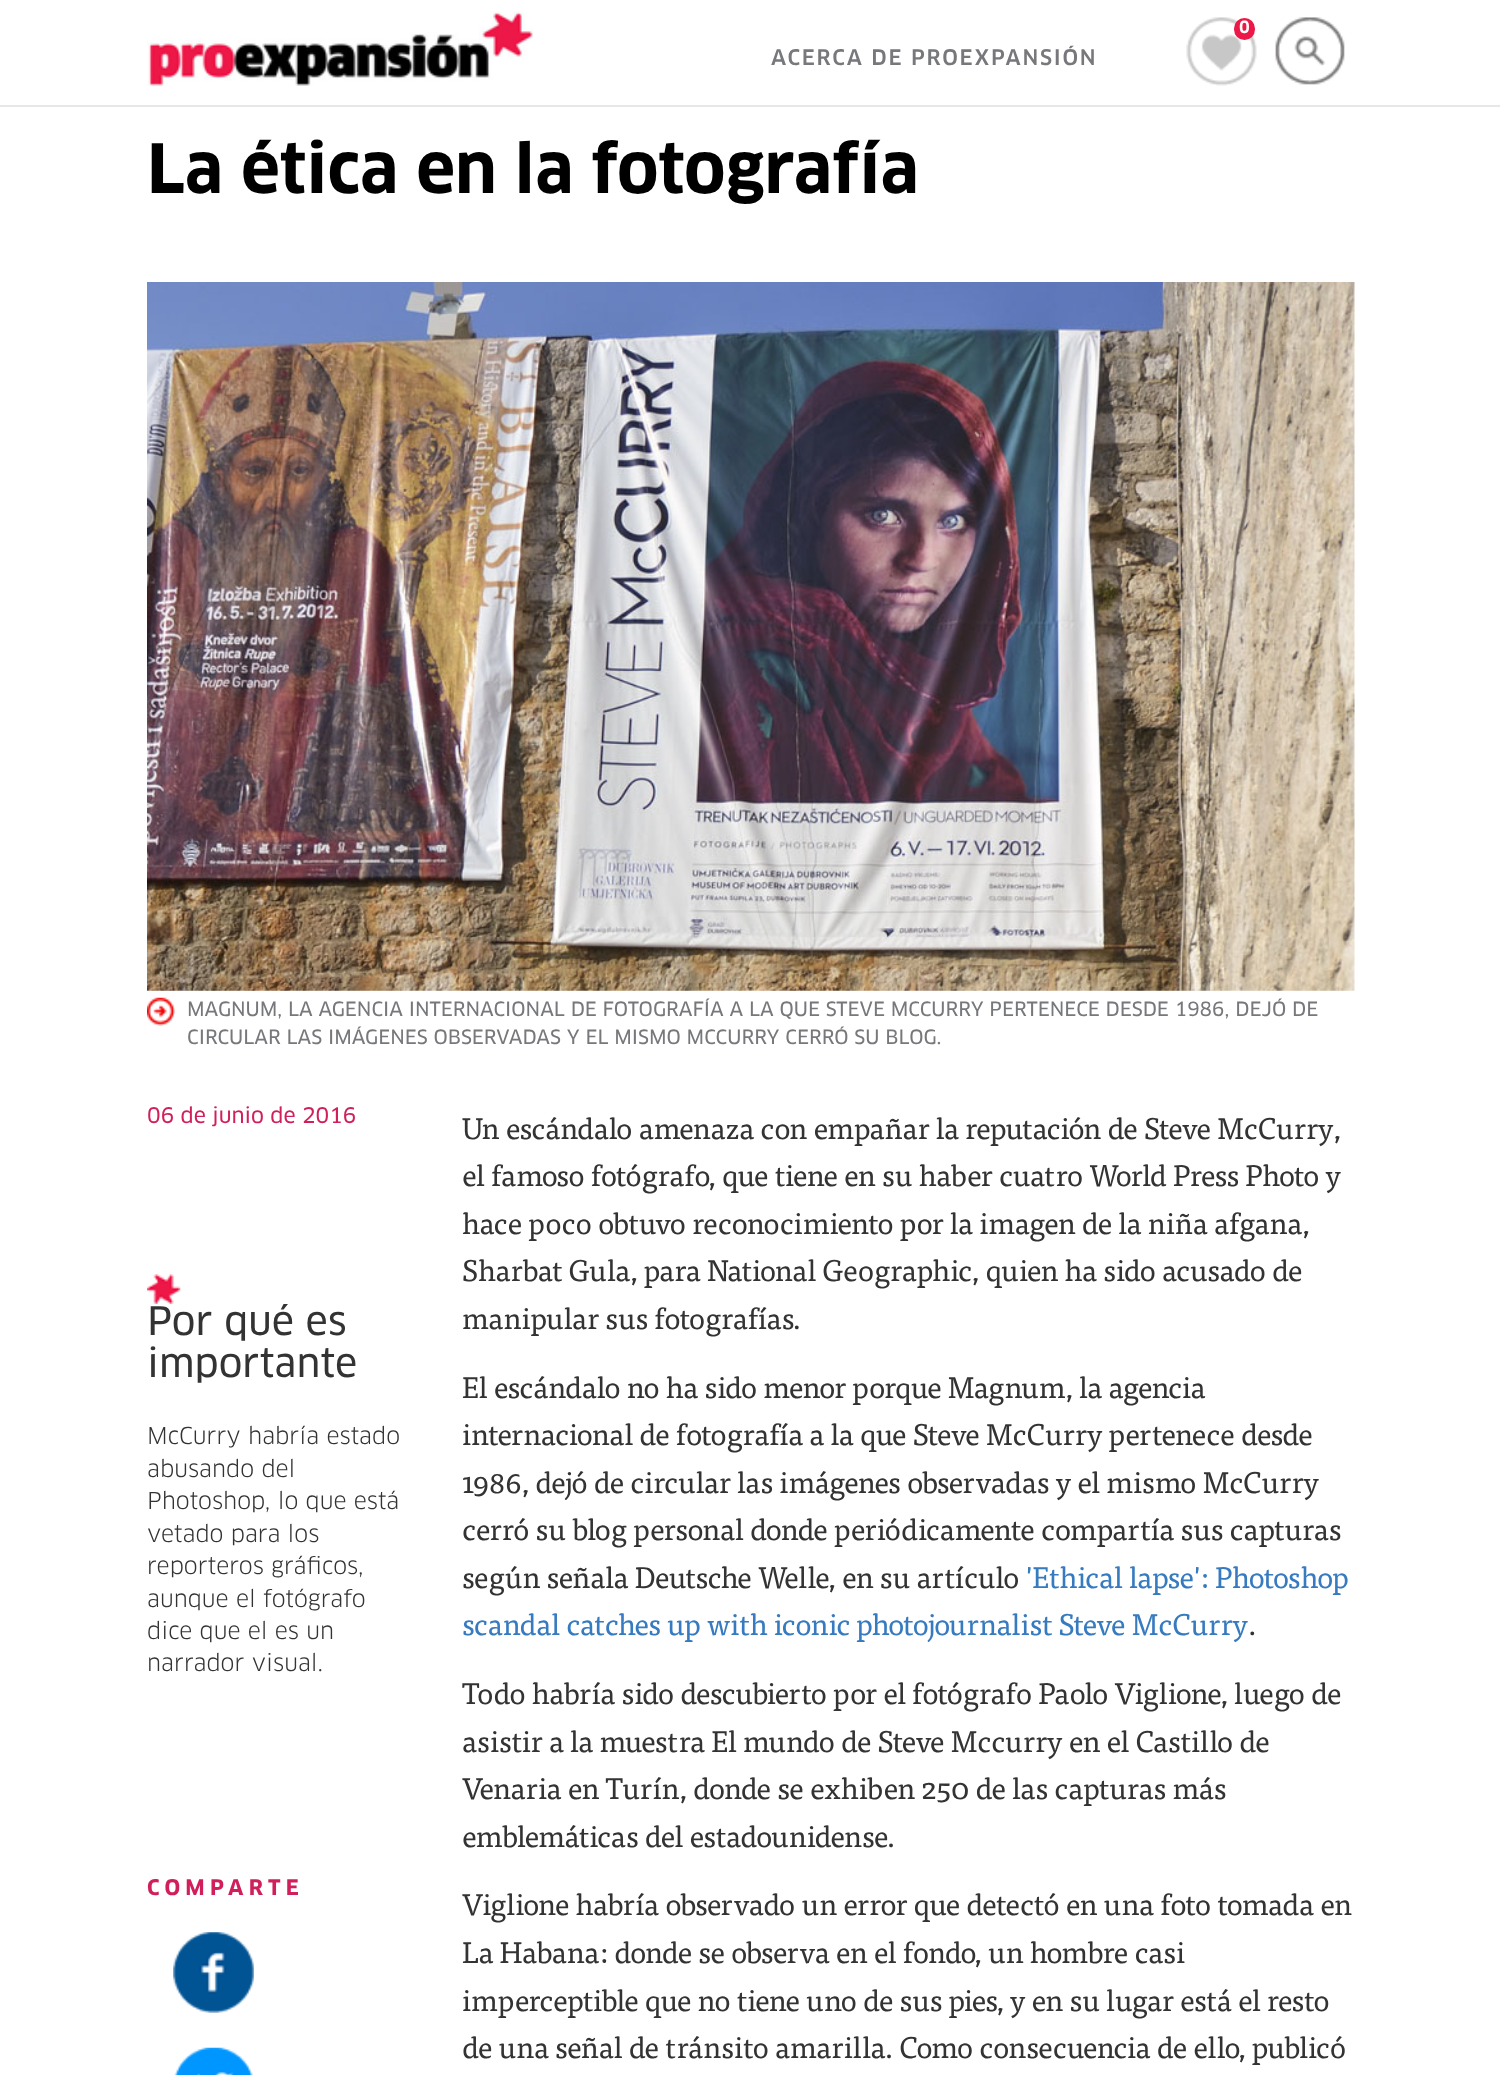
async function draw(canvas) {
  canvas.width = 1500;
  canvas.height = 2075;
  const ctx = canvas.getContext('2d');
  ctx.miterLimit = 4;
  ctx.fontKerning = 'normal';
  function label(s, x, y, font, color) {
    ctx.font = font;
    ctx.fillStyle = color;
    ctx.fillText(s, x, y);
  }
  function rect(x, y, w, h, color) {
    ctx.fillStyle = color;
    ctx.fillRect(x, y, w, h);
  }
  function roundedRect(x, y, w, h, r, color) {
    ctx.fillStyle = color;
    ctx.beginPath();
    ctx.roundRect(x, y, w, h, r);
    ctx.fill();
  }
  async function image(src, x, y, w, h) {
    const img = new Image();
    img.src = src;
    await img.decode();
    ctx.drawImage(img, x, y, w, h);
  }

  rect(0, 0, 1500, 2075, '#fff');
  rect(0, 105, 1500, 2, '#e7e7e7');
  await image('assets/img1.png', 147, 11, 387, 75);
  await image('assets/img2.png', 1186, 17, 71, 69);
  roundedRect(1234, 18, 21, 22, 10.5, '#ed1848');
  label('0', 1239, 33, 'bold 16px "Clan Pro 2"', '#fff');
  await image('assets/img3.png', 1275, 17, 70, 68);
  ctx.letterSpacing = '1.75px';
  label('ACERCA DE PROEXPANSIÓN', 771, 65, '500 21px "Clan Pro 2"', '#77787b');
  ctx.letterSpacing = '0px';
  label('La ética en la fotografía', 147, 193, 'bold 66.5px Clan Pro', '#000');
  await image('assets/img4.png', 147, 282, 1208, 709);
  await image('assets/img5.png', 147, 997, 28, 29);
  label('MAGNUM, LA AGENCIA INTERNACIONAL DE FOTOGRAFÍA A LA QUE STEVE MCCURRY PERTENECE DESDE 1986, DEJÓ DE', 187, 1016, '500 19.25px Clan Pro', '#77787b');
  label('CIRCULAR LAS IMÁGENES OBSERVADAS Y EL MISMO MCCURRY CERRÓ SU BLOG.', 187, 1044, '500 19.25px Clan Pro', '#77787b');
  label('06 de junio de 2016', 147, 1123, '500 21px Clan Pro', '#d11f5c');
  await image('assets/img6.png', 147, 1274, 34, 30);
  label('Por qué es', 147, 1335, '500 38.5px Clan Pro', '#333');
  label('importante', 147, 1377, '500 38.5px Clan Pro', '#333');
  label('McCurry habría estado', 147, 1444, '22.75px Clan Pro', '#333');
  label('abusando del', 147, 1477, '22.75px Clan Pro', '#333');
  label('Photoshop, lo que está', 147, 1509, '22.75px Clan Pro', '#333');
  label('vetado para los', 147, 1542, '22.75px Clan Pro', '#333');
  label('reporteros gráficos,', 147, 1574, '22.75px Clan Pro', '#333');
  label('aunque el fotógrafo', 147, 1607, '22.75px Clan Pro', '#333');
  label('dice que el es un', 147, 1639, '22.75px Clan Pro', '#333');
  label('narrador visual.', 147, 1671, '22.75px Clan Pro', '#333');
  ctx.letterSpacing = '5.25px';
  label('COMPARTE', 147, 1895, 'bold 21px Clan Pro', '#d11f5c');
  await image('assets/img7.png', 173, 1932, 81, 81);
  await image('assets/img8.png', 174, 2047, 79, 28);
  ctx.letterSpacing = '0px';
  label('Un escándalo amenaza con empañar la reputación de Steve McCurry,', 462, 1139, '29.75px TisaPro', '#333');
  label('el famoso fotógrafo, que tiene en su haber cuatro World Press Photo y', 462, 1186, '29.75px TisaPro', '#333');
  label('hace poco obtuvo reconocimiento por la imagen de la niña afgana,', 462, 1234, '29.75px TisaPro', '#333');
  label('Sharbat Gula, para National Geographic, quien ha sido acusado de', 462, 1281, '29.75px TisaPro', '#333');
  label('manipular sus fotografías.', 462, 1329, '29.75px TisaPro', '#333');
  label('El escándalo no ha sido menor porque Magnum, la agencia', 462, 1398, '29.75px TisaPro', '#333');
  label('internacional de fotografía a la que Steve McCurry pertenece desde', 462, 1445, '29.75px TisaPro', '#333');
  label('1986, dejó de circular las imágenes observadas y el mismo McCurry', 462, 1493, '29.75px TisaPro', '#333');
  label('cerró su blog personal donde periódicamente compartía sus capturas', 462, 1540, '29.75px TisaPro', '#333');
  label('según señala Deutsche Welle, en su artículo', 462, 1588, '29.75px TisaPro', '#333');
  label('\'Ethical lapse\': Photoshop', 1026, 1588, '29.75px TisaPro', '#367abf');
  label('scandal catches up with iconic photojournalist Steve McCurry', 462, 1635, '29.75px TisaPro', '#367abf');
  label('.', 1248, 1635, '29.75px TisaPro', '#333');
  label('Todo habría sido descubierto por el fotógrafo Paolo Viglione, luego de', 462, 1704, '29.75px TisaPro', '#333');
  label('asistir a la muestra El mundo de Steve Mccurry en el Castillo de', 462, 1752, '29.75px TisaPro', '#333');
  label('Venaria en Turín, donde se exhiben 250 de las capturas más', 462, 1799, '29.75px TisaPro', '#333');
  label('emblemáticas del estadounidense.', 462, 1847, '29.75px TisaPro', '#333');
  label('Viglione habría observado un error que detectó en una foto tomada en', 462, 1915, '29.75px TisaPro', '#333');
  label('La Habana: donde se observa en el fondo, un hombre casi', 462, 1963, '29.75px TisaPro', '#333');
  label('imperceptible que no tiene uno de sus pies, y en su lugar está el resto', 462, 2011, '29.75px TisaPro', '#333');
  label('de una señal de tránsito amarilla. Como consecuencia de ello, publicó', 462, 2058, '29.75px TisaPro', '#333');
}

draw(document.querySelector('canvas'));
